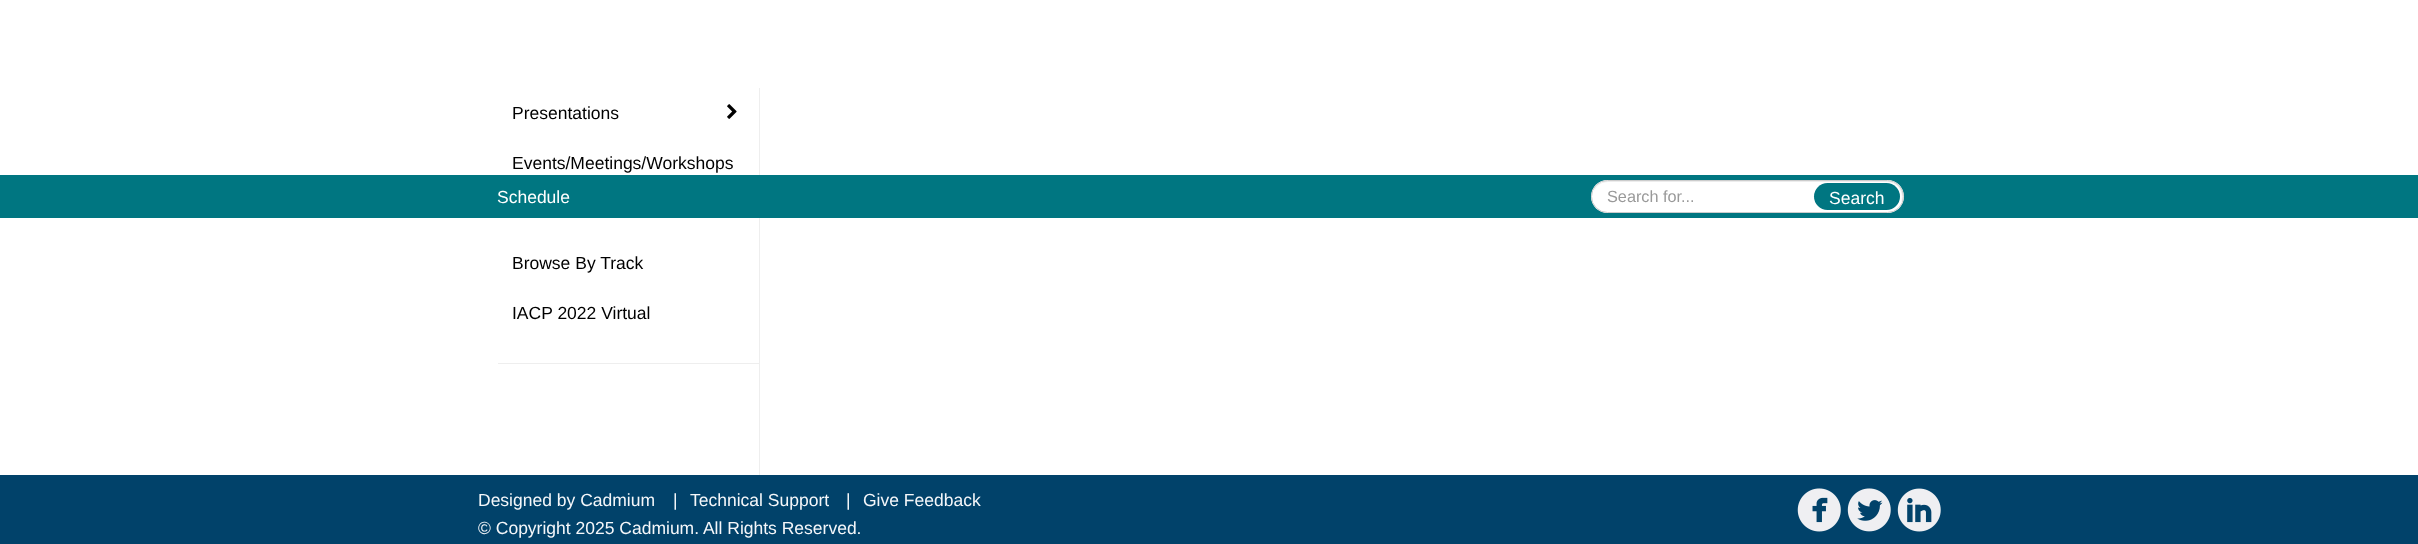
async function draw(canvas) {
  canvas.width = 2418;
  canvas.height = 544;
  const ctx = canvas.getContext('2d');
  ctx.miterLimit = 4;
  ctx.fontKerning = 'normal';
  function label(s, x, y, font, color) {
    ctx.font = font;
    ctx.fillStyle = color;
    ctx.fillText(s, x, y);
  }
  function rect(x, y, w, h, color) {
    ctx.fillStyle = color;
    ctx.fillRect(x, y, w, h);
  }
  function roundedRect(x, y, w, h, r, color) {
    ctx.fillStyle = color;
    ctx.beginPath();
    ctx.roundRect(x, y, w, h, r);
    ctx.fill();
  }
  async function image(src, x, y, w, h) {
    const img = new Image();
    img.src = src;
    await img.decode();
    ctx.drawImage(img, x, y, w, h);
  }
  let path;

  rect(0, 0, 2418, 544, '#fff');
  rect(759, 88, 1, 387, '#eee');
  label('Presentations', 512, 119, '17.5px Liberation Sans', '#000');
  await image('assets/img1.png', 727, 104, 10, 15);
  label('Events/Meetings/Workshops', 512, 169, '17.5px Liberation Sans', '#000');
  label('Browse By Track', 512, 269, '17.5px Liberation Sans', '#000');
  label('IACP 2022 Virtual', 512, 319, '17.5px Liberation Sans', '#000');
  rect(498, 363, 261, 1, '#eee');
  rect(0, 175, 2418, 43, '#007681');
  label('Schedule', 497, 203, '17.5px Liberation Sans', '#fff');
  roundedRect(1591, 180, 313, 33, 16.5, '#fff');
  ctx.fillStyle = '#ececec';
  path = new Path2D('M1608 182H1888C1900 183 1904 194 1901 203C1902 201 1903 199 1903 196C1903 188 1896 181 1888 181H1608C1601 181 1595 186 1594 192C1596 186 1601 182 1608 182Z');
  ctx.fill(path);
  ctx.beginPath();
  ctx.roundRect(1591.5, 180.5, 312, 32, 16);
  ctx.strokeStyle = '#ccc';
  ctx.stroke();
  label('Search for...', 1607, 202, '16.25px Liberation Sans', '#999');
  roundedRect(1814, 183, 86, 27, 13.5, '#007681');
  label('Search', 1829, 204, '17.5px Liberation Sans', '#fff');
  rect(0, 475, 2418, 69, '#01426a');
  label('Designed by Cadmium', 478, 506, '17.5px Liberation Sans', '#f5f7fa');
  label('|', 673, 506, '17.5px Liberation Sans', '#f5f7fa');
  label('Technical Support', 690, 506, '17.5px Liberation Sans', '#f5f7fa');
  label('|', 846, 506, '17.5px Liberation Sans', '#f5f7fa');
  label('Give Feedback', 863, 506, '17.5px Liberation Sans', '#f5f7fa');
  label('© Copyright 2025 Cadmium. All Rights Reserved.', 478, 534, '17.5px Liberation Sans', '#f5f7fa');
  await image('assets/img2.png', 1797, 488, 44, 44);
  await image('assets/img3.png', 1847, 488, 44, 44);
  await image('assets/img4.png', 1897, 488, 44, 44);
}

draw(document.querySelector('canvas'));
